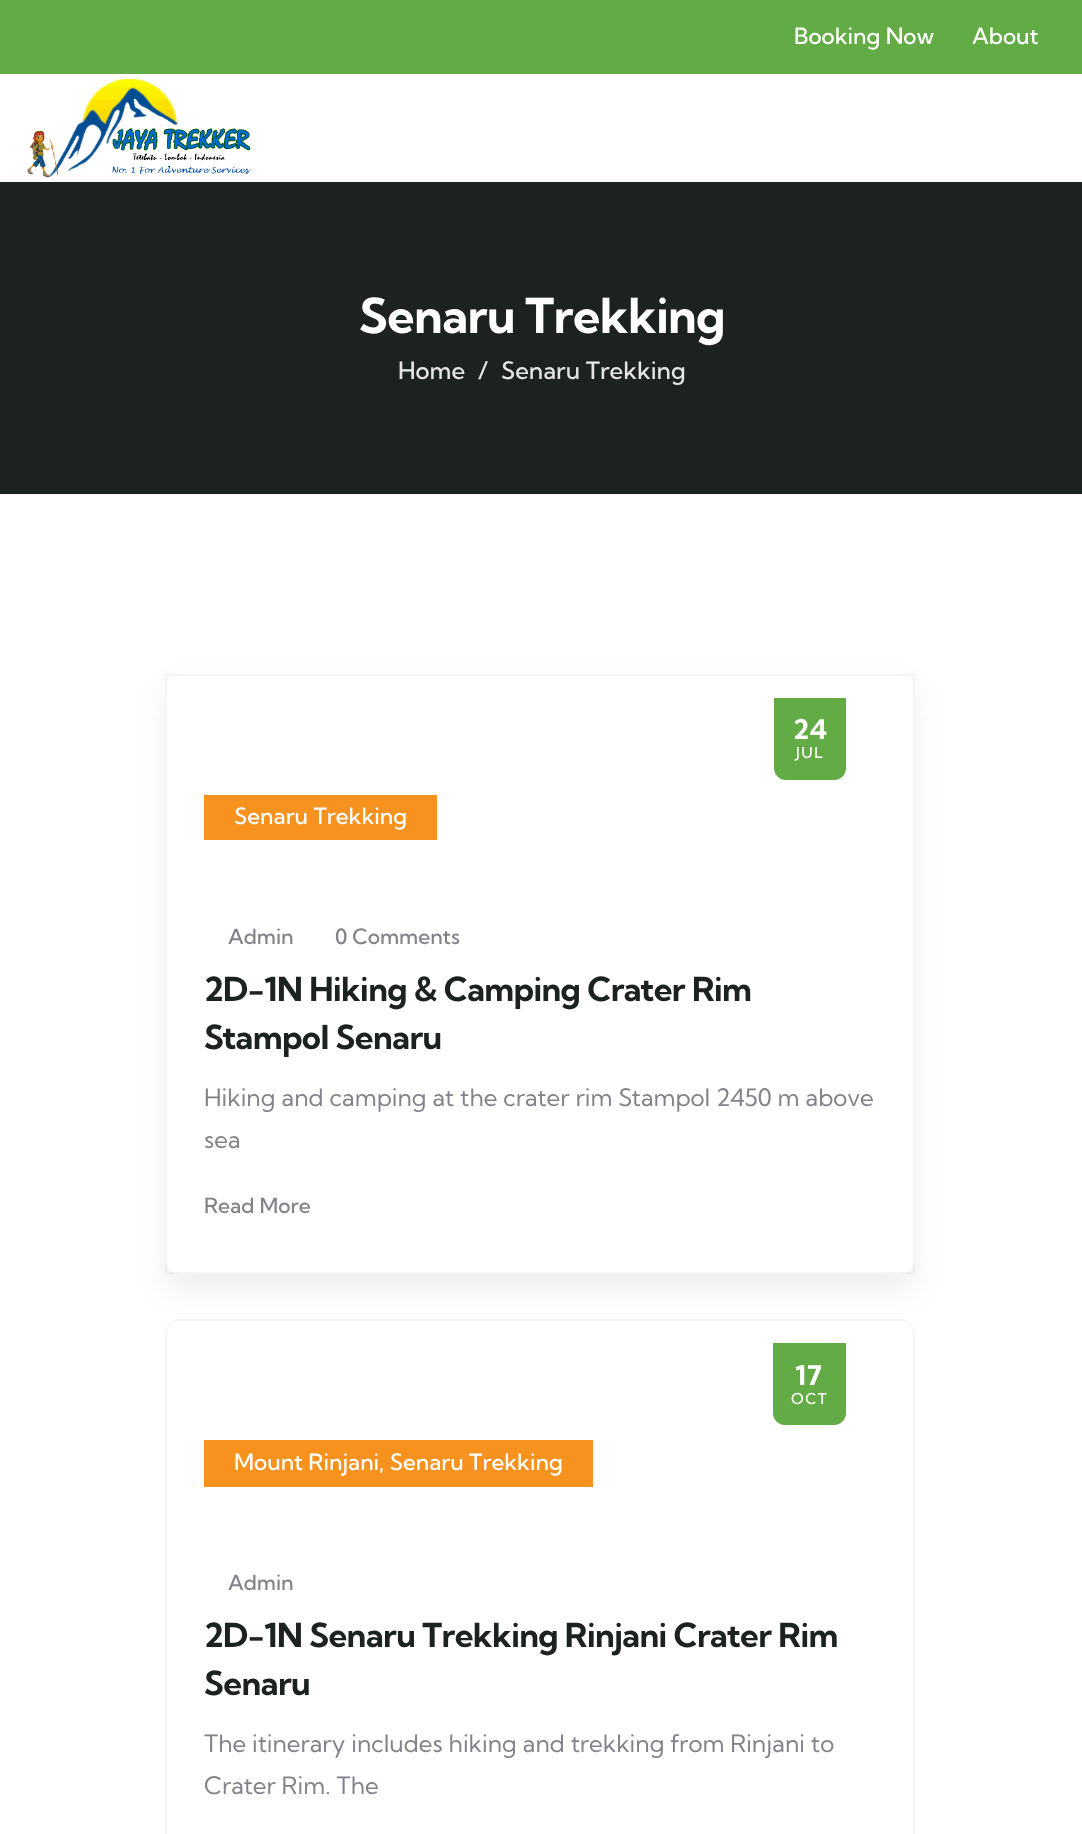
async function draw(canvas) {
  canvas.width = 1082;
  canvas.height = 1834;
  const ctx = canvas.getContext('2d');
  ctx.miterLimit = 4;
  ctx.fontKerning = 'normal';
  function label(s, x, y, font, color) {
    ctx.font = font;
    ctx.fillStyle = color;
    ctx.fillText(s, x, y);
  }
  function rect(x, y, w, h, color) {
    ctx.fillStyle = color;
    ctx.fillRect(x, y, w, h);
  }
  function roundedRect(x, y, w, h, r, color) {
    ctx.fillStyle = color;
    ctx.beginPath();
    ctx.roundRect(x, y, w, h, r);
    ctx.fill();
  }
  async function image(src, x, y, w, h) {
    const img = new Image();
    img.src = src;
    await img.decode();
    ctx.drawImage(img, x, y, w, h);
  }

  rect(0, 0, 1082, 1834, '#fff');
  rect(0, 0, 1082, 74, '#63ab45');
  label('Booking Now', 794, 44, '500 22.5px Kumbh Sans', '#fff');
  label('About', 972, 44, '500 22.5px Kumbh Sans', '#fff');
  await image('assets/img1.png', 27, 78, 224, 100);
  rect(0, 182, 1082, 312, '#1c231f');
  ctx.letterSpacing = '-0.6px';
  label('Senaru Trekking', 359, 333, 'bold 48px Kumbh Sans', '#fff');
  ctx.letterSpacing = '0px';
  label('Home', 398, 379, '500 24px Kumbh Sans', '#e5e5e5');
  label('/', 478, 379, '500 24px Kumbh Sans', '#e5e5e5');
  label('Senaru Trekking', 501, 379, '500 24px Kumbh Sans', '#e5e5e5');
  ctx.fillStyle = '#4c4c4c1a';
  ctx.filter = 'blur(15px)';
  ctx.beginPath();
  ctx.roundRect(165, 689, 750, 600, 15);
  ctx.fill();
  ctx.filter = 'none';
  roundedRect(165, 674, 750, 600, 15, '#fff');
  ctx.strokeStyle = '#0000000a';
  ctx.lineWidth = 2;
  ctx.strokeRect(166, 675, 748, 598);
  ctx.fillStyle = '#63ab45';
  ctx.beginPath();
  ctx.roundRect(774, 698, 72, 82, [0, 0, 12, 12]);
  ctx.fill();
  ctx.letterSpacing = '1.5px';
  label('24', 793, 739, 'bold 27px Kumbh Sans', '#fff');
  label('JUL', 796, 758, '500 15px Kumbh Sans', '#fff');
  rect(204, 795, 233, 45, '#f7921e');
  ctx.letterSpacing = '0px';
  label('Senaru Trekking', 234, 824, '500 22.5px Kumbh Sans', '#fff');
  label('Admin', 228, 944, '500 21px Kumbh Sans', '#82828a');
  label('0 Comments', 335, 944, '500 21px Kumbh Sans', '#82828a');
  ctx.letterSpacing = '-0.6px';
  label('2D-1N Hiking & Camping Crater Rim', 204, 1001, 'bold 33px Kumbh Sans', '#1c231f');
  label('Stampol Senaru', 204, 1049, 'bold 33px Kumbh Sans', '#1c231f');
  ctx.letterSpacing = '0px';
  label('Hiking and camping at the crater rim Stampol 2450 m above', 204, 1106, '24px Kumbh Sans', '#82828a');
  label('sea', 204, 1148, '24px Kumbh Sans', '#82828a');
  label('Read More', 204, 1213, '500 21px Kumbh Sans', '#82828a');
  ctx.beginPath();
  ctx.roundRect(166, 1320, 748, 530, 14);
  ctx.strokeStyle = '#f6f6f6';
  ctx.stroke();
  ctx.fillStyle = '#63ab45';
  ctx.beginPath();
  ctx.roundRect(773, 1343, 73, 82, [0, 0, 12, 12]);
  ctx.fill();
  ctx.letterSpacing = '1.5px';
  label('17', 795, 1385, 'bold 27px Kumbh Sans', '#fff');
  label('OCT', 791, 1404, '500 15px Kumbh Sans', '#fff');
  rect(204, 1440, 389, 47, '#f7921e');
  ctx.letterSpacing = '0px';
  label('Mount Rinjani, Senaru Trekking', 234, 1470, '500 22.5px Kumbh Sans', '#fff');
  label('Admin', 228, 1590, '500 21px Kumbh Sans', '#82828a');
  ctx.letterSpacing = '-0.6px';
  label('2D-1N Senaru Trekking Rinjani Crater Rim', 204, 1647, 'bold 33px Kumbh Sans', '#1c231f');
  label('Senaru', 204, 1695, 'bold 33px Kumbh Sans', '#1c231f');
  ctx.letterSpacing = '0px';
  label('The itinerary includes hiking and trekking from Rinjani to', 204, 1752, '24px Kumbh Sans', '#82828a');
  label('Crater Rim. The', 204, 1794, '24px Kumbh Sans', '#82828a');
}

draw(document.querySelector('canvas'));
